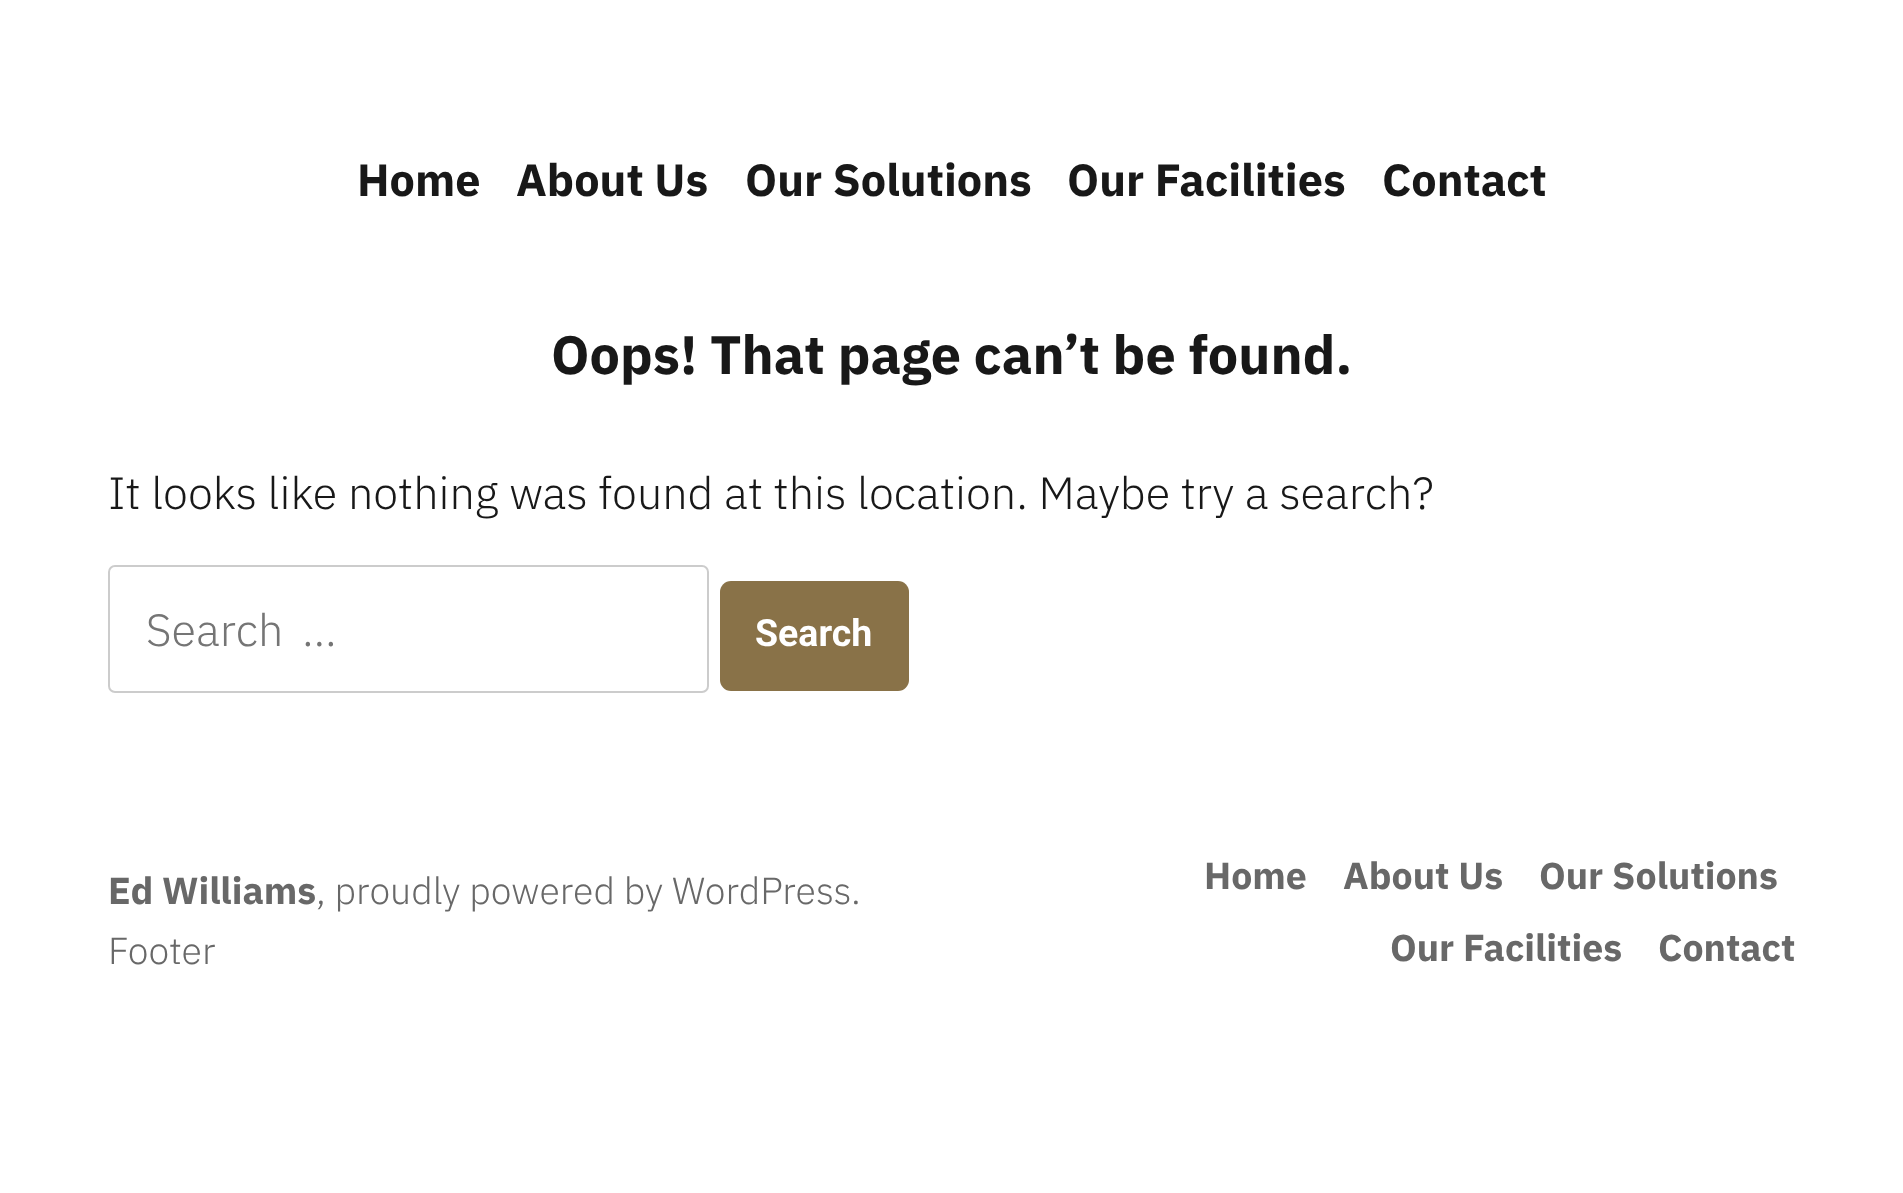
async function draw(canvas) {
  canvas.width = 1903;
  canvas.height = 1193;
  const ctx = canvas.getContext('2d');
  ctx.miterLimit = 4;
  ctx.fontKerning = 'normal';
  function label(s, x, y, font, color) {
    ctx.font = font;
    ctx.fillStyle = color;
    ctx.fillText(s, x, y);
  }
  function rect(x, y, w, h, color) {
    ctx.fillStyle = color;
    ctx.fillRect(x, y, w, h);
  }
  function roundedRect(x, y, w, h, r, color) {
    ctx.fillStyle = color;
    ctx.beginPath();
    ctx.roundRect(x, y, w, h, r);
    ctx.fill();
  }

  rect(0, 0, 1903, 1193, '#fff');
  label('Home', 357, 196, 'bold 45px IBM Plex Sans', '#181818');
  label('About Us', 516, 196, 'bold 45px IBM Plex Sans', '#181818');
  label('Our Solutions', 745, 196, 'bold 45px IBM Plex Sans', '#181818');
  label('Our Facilities', 1067, 196, 'bold 45px IBM Plex Sans', '#181818');
  label('Contact', 1382, 196, 'bold 45px IBM Plex Sans', '#181818');
  label('Oops! That page can’t be found.', 551, 374, 'bold 54px IBM Plex Sans', '#181818');
  label('It looks like nothing was found at this location. Maybe try a search?', 108, 509, '300 45px IBM Plex Sans', '#181818');
  ctx.beginPath();
  ctx.roundRect(109, 566, 599, 126, 6);
  ctx.strokeStyle = '#ccc';
  ctx.lineWidth = 2;
  ctx.stroke();
  ctx.wordSpacing = '8px';
  label('Search …', 146, 646, '300 45px IBM Plex Sans', '#757575');
  roundedRect(720, 581, 189, 110, 11, '#897248');
  ctx.wordSpacing = '0px';
  label('Search', 755, 646, 'bold 37.5px Roboto', '#fff');
  label('Ed Williams', 108, 904, 'bold 37.5px IBM Plex Sans', '#686868');
  label(', proudly powered by WordPress', 316, 904, '300 37.5px IBM Plex Sans', '#686868');
  label('.', 851, 904, '300 37.5px IBM Plex Sans', '#686868');
  label('Footer', 108, 964, '300 37.5px IBM Plex Sans', '#686868');
  label('Home', 1204, 889, 'bold 37.5px IBM Plex Sans', '#686868');
  label('About Us', 1343, 889, 'bold 37.5px IBM Plex Sans', '#686868');
  label('Our Solutions', 1539, 889, 'bold 37.5px IBM Plex Sans', '#686868');
  label('Our Facilities', 1390, 961, 'bold 37.5px IBM Plex Sans', '#686868');
  label('Contact', 1658, 961, 'bold 37.5px IBM Plex Sans', '#686868');
}

draw(document.querySelector('canvas'));
